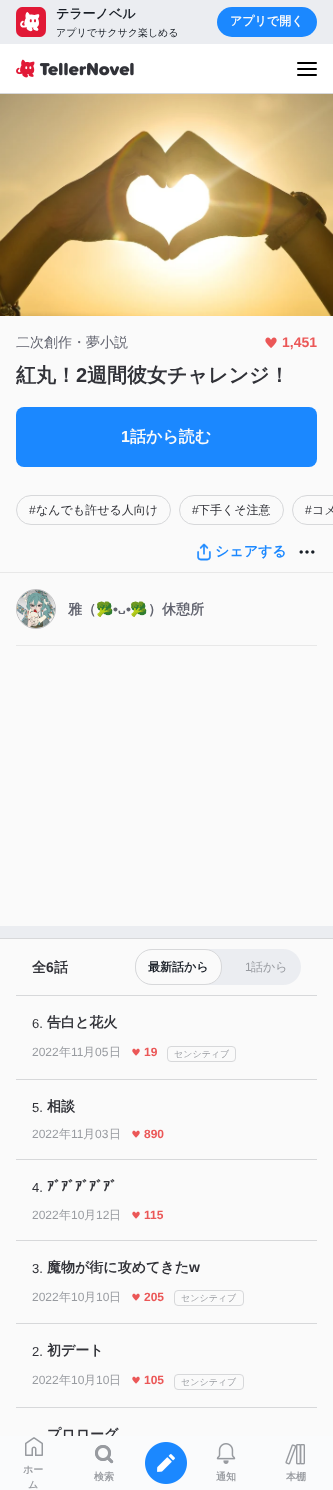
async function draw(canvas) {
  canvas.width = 333;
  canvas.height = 1490;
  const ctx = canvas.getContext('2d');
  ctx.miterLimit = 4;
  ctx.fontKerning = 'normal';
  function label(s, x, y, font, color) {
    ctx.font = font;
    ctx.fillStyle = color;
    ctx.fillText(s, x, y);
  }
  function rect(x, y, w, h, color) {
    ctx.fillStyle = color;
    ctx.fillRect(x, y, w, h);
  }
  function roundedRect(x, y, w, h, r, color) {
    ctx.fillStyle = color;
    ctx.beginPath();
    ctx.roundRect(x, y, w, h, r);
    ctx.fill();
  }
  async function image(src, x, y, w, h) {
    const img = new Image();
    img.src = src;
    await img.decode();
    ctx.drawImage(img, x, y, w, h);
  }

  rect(0, 0, 333, 1490, '#ebedf1');
  await image('assets/img1.png', 16, 7, 30, 30);
  label('テラーノベル', 56, 18, 'bold 13px WenQuanYi Zen Hei', '#181e26');
  label('アプリでサクサク楽しめる', 56, 36, '500 10px WenQuanYi Zen Hei', '#181e26');
  roundedRect(217, 7, 100, 30, 15, '#1b88ff');
  label('アプリで開く', 230, 25, 'bold 12px WenQuanYi Zen Hei', '#fafafa');
  rect(0, 44, 333, 49, '#fff');
  rect(0, 93, 333, 1, '#d7d8da');
  await image('assets/img2.png', 16, 59, 118, 19);
  roundedRect(297, 62, 20, 2, 1, '#000');
  roundedRect(297, 68, 20, 2, 1, '#000');
  roundedRect(297, 74, 20, 2, 1, '#000');
  await image('assets/img3.png', 0, 94, 333, 222);
  rect(0, 316, 333, 1120, '#fafafa');
  label('二次創作・夢小説', 16, 347, '500 14px WenQuanYi Zen Hei', '#62646f');
  await image('assets/img4.png', 265, 337, 12, 11);
  label('1,451', 282, 347, 'bold 14px Liberation Sans', '#eb5757');
  label('紅丸！', 16, 382, 'bold 20px WenQuanYi Zen Hei', '#313238');
  label('2', 76, 382, 'bold 20px Liberation Sans', '#313238');
  label('週間彼女チャレンジ！', 87, 382, 'bold 20px WenQuanYi Zen Hei', '#313238');
  roundedRect(16, 407, 301, 60, 8, '#1b88ff');
  label('1', 121, 442, 'bold 16px Liberation Sans', '#fafafa');
  label('話から読む', 130, 442, 'bold 16px WenQuanYi Zen Hei', '#fafafa');
  ctx.beginPath();
  ctx.roundRect(16.5, 495.5, 154, 29, 14.5);
  ctx.strokeStyle = '#d7d8da';
  ctx.stroke();
  label('#', 29, 514, '12px Liberation Sans', '#313238');
  label('なんでも許せる人向け', 36, 514, '500 12px WenQuanYi Zen Hei', '#313238');
  ctx.beginPath();
  ctx.roundRect(179.5, 495.5, 104, 29, 14.5);
  ctx.stroke();
  label('#', 192, 514, '12px Liberation Sans', '#313238');
  label('下手くそ注意', 198, 514, '500 12px WenQuanYi Zen Hei', '#313238');
  ctx.beginPath();
  ctx.roundRect(292.5, 495.5, 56, 29, 14.5);
  ctx.stroke();
  label('#', 305, 514, '12px Liberation Sans', '#313238');
  label('コメ', 312, 514, '500 12px WenQuanYi Zen Hei', '#313238');
  await image('assets/img5.png', 197, 543, 14, 18);
  label('シェアする', 215, 556, 'bold 14px WenQuanYi Zen Hei', '#1b88ff');
  await image('assets/img6.png', 299, 550, 16, 4);
  rect(0, 572, 333, 1, '#e8e8e8');
  ctx.beginPath();
  ctx.arc(36, 609, 19.5, 0, 2 * Math.PI);
  ctx.strokeStyle = '#bebec0';
  ctx.stroke();
  await image('assets/img7.png', 17, 590, 38, 38);
  label('雅（', 68, 614, 'bold 14px WenQuanYi Zen Hei', '#62646f');
  label('🥦', 96, 614, 'bold 14px Noto Color Emoji', '#62646f');
  label('•', 113, 614, 'bold 14px Liberation Sans', '#62646f');
  label('•', 126, 614, 'bold 14px Liberation Sans', '#62646f');
  label('🥦', 130, 614, 'bold 14px Noto Color Emoji', '#62646f');
  label('）休憩所', 148, 614, 'bold 14px WenQuanYi Zen Hei', '#62646f');
  label('᎑', 118, 614, 'bold 14px Abyssinica SIL', '#62646f');
  rect(16, 645, 301, 1, '#e8e8e8');
  rect(0, 926, 333, 12, '#ebedf1');
  rect(0, 938, 333, 1, '#d7d8da');
  rect(16, 995, 301, 1, '#d7d8da');
  label('全', 32, 972, 'bold 14px WenQuanYi Zen Hei', '#313238');
  label('6', 46, 972, 'bold 14px Liberation Sans', '#313238');
  label('話', 54, 972, 'bold 14px WenQuanYi Zen Hei', '#313238');
  roundedRect(135, 949, 166, 36, 18, '#ebedf1');
  ctx.fillStyle = '#fafafa';
  ctx.beginPath();
  ctx.roundRect(135.5, 949.5, 86, 35, 16.5);
  ctx.fill();
  ctx.strokeStyle = '#d7d8da';
  ctx.stroke();
  label('最新話から', 148, 971, 'bold 12px WenQuanYi Zen Hei', '#181e26');
  label('1', 245, 971, '12px Liberation Sans', '#989ba0');
  label('話から', 251, 971, '500 12px WenQuanYi Zen Hei', '#989ba0');
  rect(16, 1079, 301, 1, '#d7d8da');
  label('6.', 32, 1028, '13px Liberation Sans', '#313238');
  label('告白と花火', 47, 1027, 'bold 14px WenQuanYi Zen Hei', '#313238');
  label('2022', 32, 1056, '12px Liberation Sans', '#989ba0');
  label('年', 59, 1056, '500 12px WenQuanYi Zen Hei', '#989ba0');
  label('11', 71, 1056, '12px Liberation Sans', '#989ba0');
  label('月', 83, 1056, '500 12px WenQuanYi Zen Hei', '#989ba0');
  label('05', 95, 1056, '12px Liberation Sans', '#989ba0');
  label('日', 109, 1056, '500 12px WenQuanYi Zen Hei', '#989ba0');
  await image('assets/img8.png', 132, 1048, 8, 8);
  label('19', 144, 1056, 'bold 12px Liberation Sans', '#eb5757');
  ctx.beginPath();
  ctx.roundRect(167.5, 1046.5, 68, 15, 3.5);
  ctx.stroke();
  label('センシティブ', 174, 1057, '500 9px WenQuanYi Zen Hei', '#989ba0');
  rect(16, 1159, 301, 1, '#d7d8da');
  label('5.', 32, 1112, '13px Liberation Sans', '#313238');
  label('相談', 47, 1111, 'bold 14px WenQuanYi Zen Hei', '#313238');
  label('2022', 32, 1138, '12px Liberation Sans', '#989ba0');
  label('年', 59, 1138, '500 12px WenQuanYi Zen Hei', '#989ba0');
  label('11', 71, 1138, '12px Liberation Sans', '#989ba0');
  label('月', 83, 1138, '500 12px WenQuanYi Zen Hei', '#989ba0');
  label('03', 95, 1138, '12px Liberation Sans', '#989ba0');
  label('日', 109, 1138, '500 12px WenQuanYi Zen Hei', '#989ba0');
  await image('assets/img8.png', 132, 1130, 8, 8);
  label('890', 144, 1138, 'bold 12px Liberation Sans', '#eb5757');
  rect(16, 1240, 301, 1, '#d7d8da');
  label('4.', 32, 1192, '13px Liberation Sans', '#313238');
  label('ｱﾞｱﾞｱﾞｱﾞｱﾞ', 47, 1191, 'bold 14px IPAPGothic', '#313238');
  label('2022', 32, 1219, '12px Liberation Sans', '#989ba0');
  label('年', 59, 1219, '500 12px WenQuanYi Zen Hei', '#989ba0');
  label('10', 71, 1219, '12px Liberation Sans', '#989ba0');
  label('月', 84, 1219, '500 12px WenQuanYi Zen Hei', '#989ba0');
  label('12', 96, 1219, '12px Liberation Sans', '#989ba0');
  label('日', 109, 1219, '500 12px WenQuanYi Zen Hei', '#989ba0');
  await image('assets/img8.png', 132, 1211, 8, 8);
  label('115', 144, 1219, 'bold 12px Liberation Sans', '#eb5757');
  rect(16, 1323, 301, 1, '#d7d8da');
  label('3.', 32, 1273, '13px Liberation Sans', '#313238');
  label('魔物が街に攻めてきた', 47, 1272, 'bold 14px WenQuanYi Zen Hei', '#313238');
  label('w', 189, 1272, 'bold 14px Liberation Sans', '#313238');
  label('2022', 32, 1301, '12px Liberation Sans', '#989ba0');
  label('年', 59, 1301, '500 12px WenQuanYi Zen Hei', '#989ba0');
  label('10', 71, 1301, '12px Liberation Sans', '#989ba0');
  label('月', 84, 1301, '500 12px WenQuanYi Zen Hei', '#989ba0');
  label('10', 96, 1301, '12px Liberation Sans', '#989ba0');
  label('日', 109, 1301, '500 12px WenQuanYi Zen Hei', '#989ba0');
  await image('assets/img8.png', 132, 1293, 8, 8);
  label('205', 144, 1301, 'bold 12px Liberation Sans', '#eb5757');
  ctx.beginPath();
  ctx.roundRect(174.5, 1290.5, 69, 15, 3.5);
  ctx.stroke();
  label('センシティブ', 181, 1301, '500 9px WenQuanYi Zen Hei', '#989ba0');
  rect(16, 1407, 301, 1, '#d7d8da');
  label('2.', 32, 1356, '13px Liberation Sans', '#313238');
  label('初デート', 47, 1355, 'bold 14px WenQuanYi Zen Hei', '#313238');
  label('2022', 32, 1384, '12px Liberation Sans', '#989ba0');
  label('年', 59, 1384, '500 12px WenQuanYi Zen Hei', '#989ba0');
  label('10', 71, 1384, '12px Liberation Sans', '#989ba0');
  label('月', 84, 1384, '500 12px WenQuanYi Zen Hei', '#989ba0');
  label('10', 96, 1384, '12px Liberation Sans', '#989ba0');
  label('日', 109, 1384, '500 12px WenQuanYi Zen Hei', '#989ba0');
  await image('assets/img8.png', 132, 1376, 8, 8);
  label('105', 144, 1384, 'bold 12px Liberation Sans', '#eb5757');
  ctx.beginPath();
  ctx.roundRect(174.5, 1374.5, 69, 15, 3.5);
  ctx.stroke();
  label('センシティブ', 181, 1385, '500 9px WenQuanYi Zen Hei', '#989ba0');
  label('プロローグ', 47, 1439, 'bold 14px WenQuanYi Zen Hei', '#313238');
  rect(0, 1436, 333, 54, '#fafbfc');
  await image('assets/img9.png', 25, 1437, 18, 19);
  label('ホー', 23, 1473, 'bold 10px WenQuanYi Zen Hei', '#989ba0');
  label('ム', 28, 1488, 'bold 10px WenQuanYi Zen Hei', '#989ba0');
  await image('assets/img10.png', 95, 1445, 19, 19);
  label('検索', 94, 1480, 'bold 10px WenQuanYi Zen Hei', '#989ba0');
  await image('assets/img11.png', 145, 1442, 42, 42);
  await image('assets/img12.png', 216, 1443, 20, 21);
  label('通知', 216, 1480, 'bold 10px WenQuanYi Zen Hei', '#989ba0');
  await image('assets/img13.png', 285, 1444, 20, 21);
  label('本棚', 286, 1480, 'bold 10px WenQuanYi Zen Hei', '#989ba0');
}

draw(document.querySelector('canvas'));
